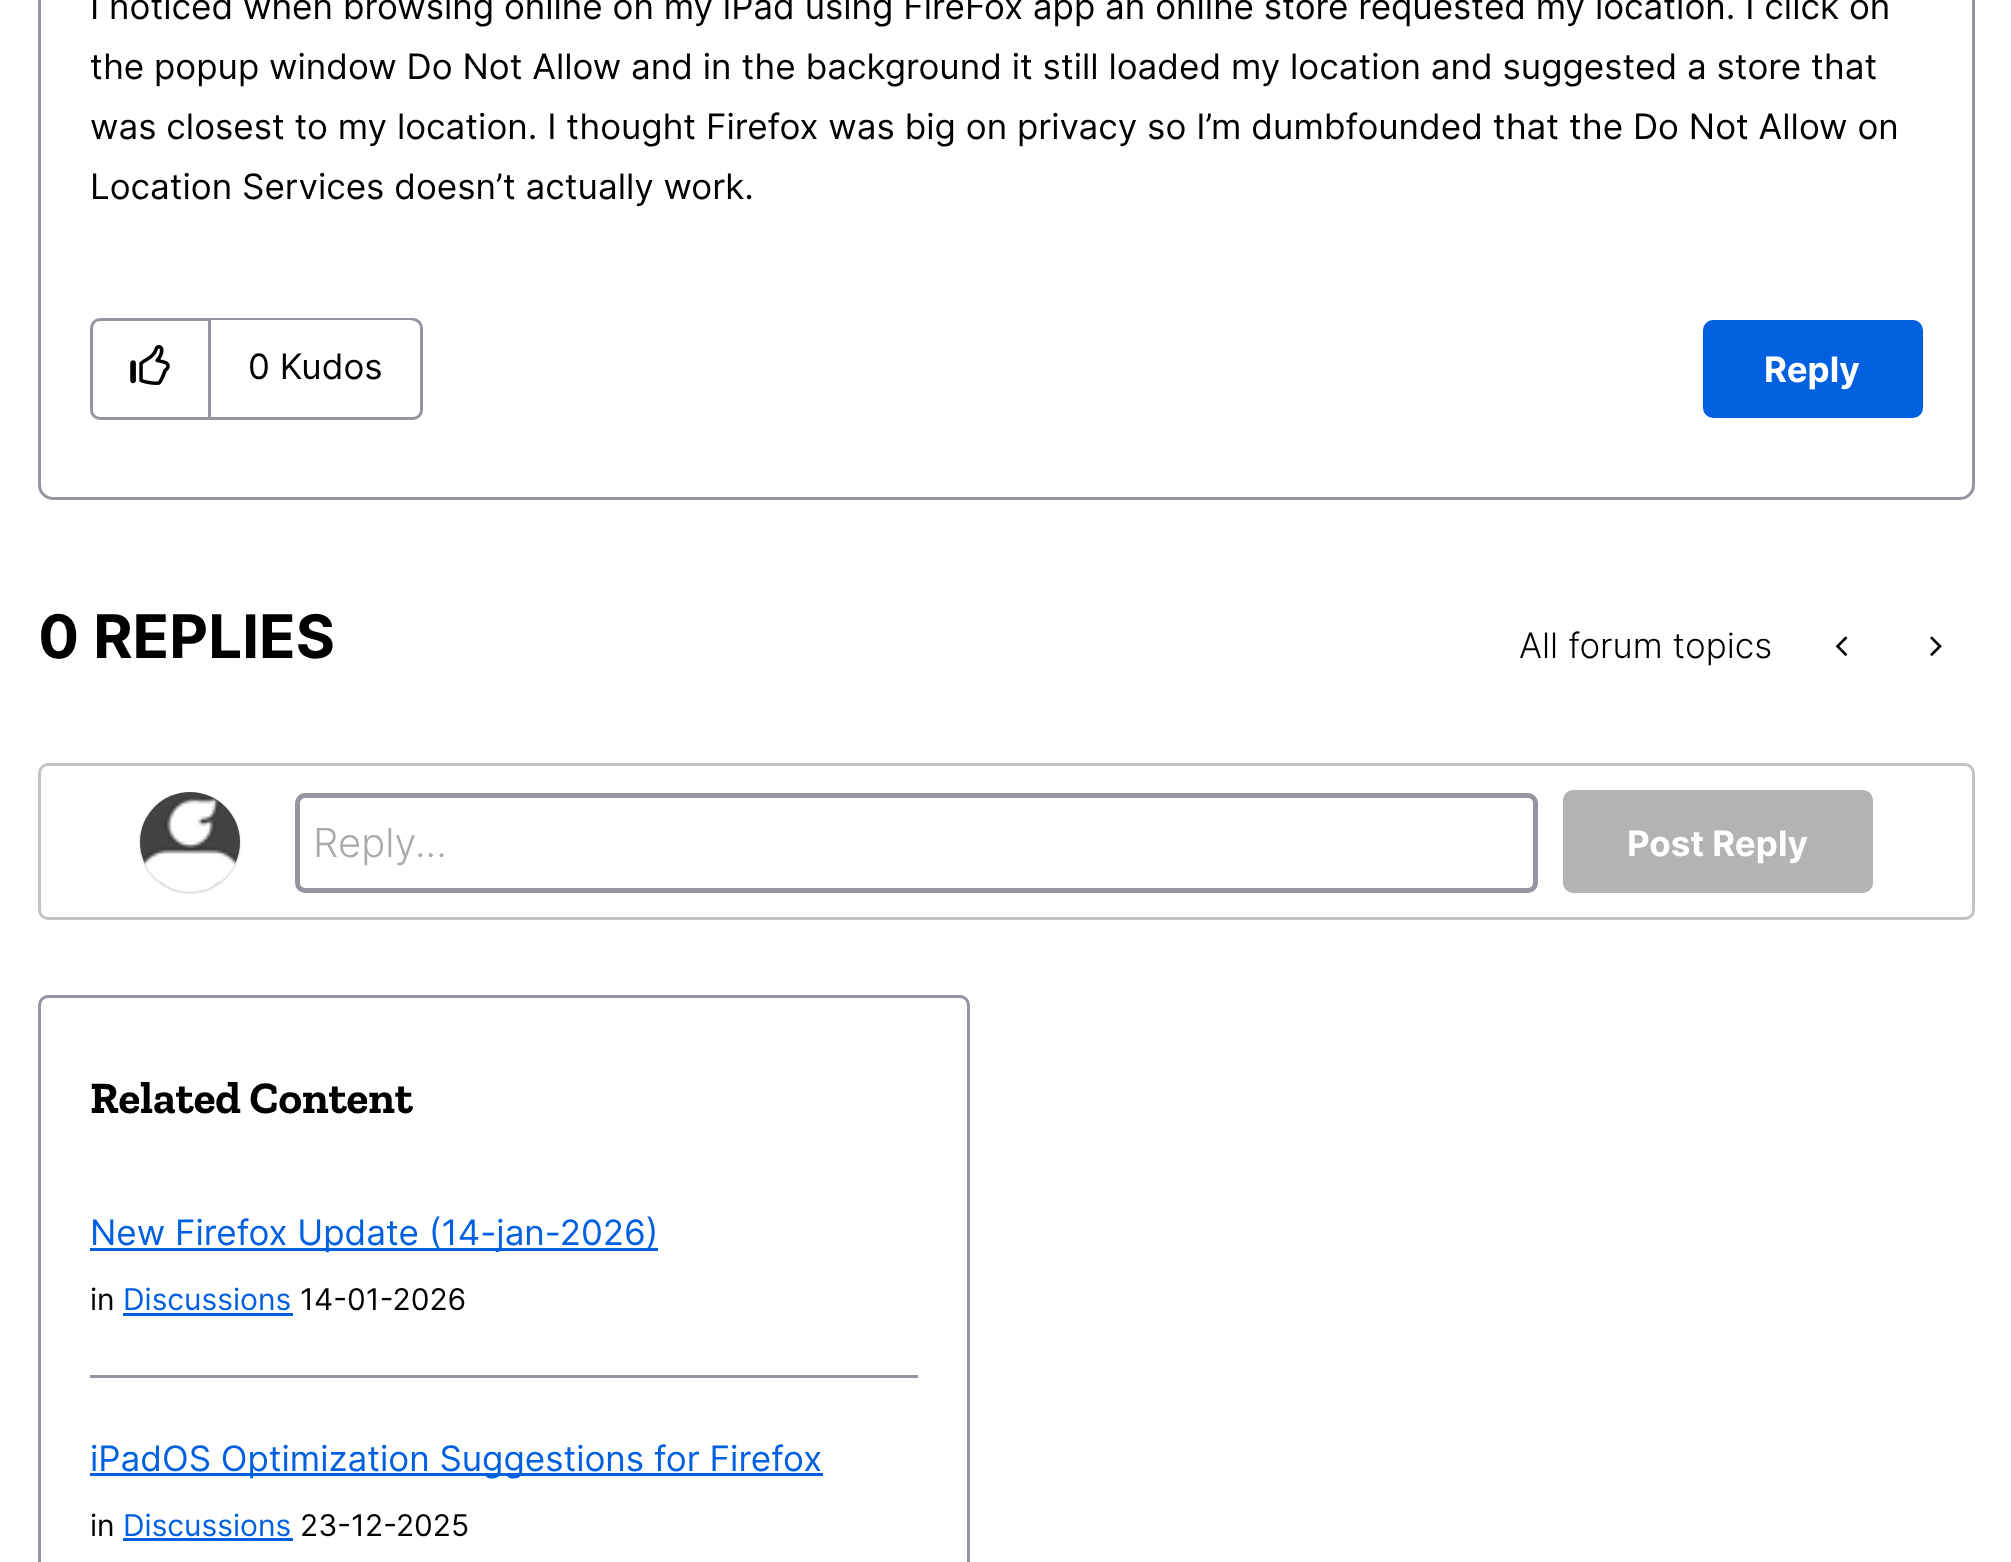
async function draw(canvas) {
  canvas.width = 2011;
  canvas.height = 1562;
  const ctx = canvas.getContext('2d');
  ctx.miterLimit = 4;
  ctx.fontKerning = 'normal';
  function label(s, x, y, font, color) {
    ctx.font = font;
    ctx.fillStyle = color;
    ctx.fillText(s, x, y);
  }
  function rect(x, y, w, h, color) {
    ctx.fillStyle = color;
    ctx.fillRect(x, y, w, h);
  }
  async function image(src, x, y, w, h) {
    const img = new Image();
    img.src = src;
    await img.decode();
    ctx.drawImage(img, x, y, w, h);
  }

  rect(0, 0, 2011, 1562, '#fff');
  ctx.beginPath();
  ctx.roundRect(39.5, -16.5, 1934, 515, 13.5);
  ctx.strokeStyle = '#9595a2';
  ctx.lineWidth = 3;
  ctx.stroke();
  label('I noticed when browsing online on my iPad using FireFox app an online store requested my location. I click on', 90, 19, '35px Inter', '#000');
  label('the popup window Do Not Allow and in the background it still loaded my location and suggested a store that', 90, 79, '35px Inter', '#000');
  label('was closest to my location. I thought Firefox was big on privacy so I’m dumbfounded that the Do Not Allow on', 90, 139, '35px Inter', '#000');
  label('Location Services doesn’t actually work.', 90, 199, '35px Inter', '#000');
  ctx.beginPath();
  ctx.roundRect(91.5, 319.5, 330, 99, 8.5);
  ctx.stroke();
  ctx.fillStyle = '#fff';
  ctx.beginPath();
  ctx.roundRect(210, 320, 210, 95, [0, 10, 10, 0]);
  ctx.fill();
  rect(208, 320, 3, 98, '#9595a2');
  await image('assets/img1.png', 130, 345, 40, 40);
  label('0 Kudos', 248, 379, '35px Inter', '#000');
  ctx.fillStyle = '#0060df';
  ctx.beginPath();
  ctx.roundRect(1704.5, 321.5, 217, 95, 8.5);
  ctx.fill();
  ctx.strokeStyle = '#0060df';
  ctx.stroke();
  label('Reply', 1764, 382, 'bold 35px Inter', '#fff');
  label('0 REPLIES', 38, 658, 'bold 60px Inter', '#000');
  label('All forum topics', 1519, 658, '300 35px Inter', '#000');
  await image('assets/img2.png', 1835, 636, 13, 20);
  await image('assets/img3.png', 1930, 636, 12, 20);
  ctx.beginPath();
  ctx.roundRect(39.5, 764.5, 1934, 154, 8.5);
  ctx.strokeStyle = '#c4c4c4';
  ctx.stroke();
  ctx.fillStyle = '#c4c4c4';
  ctx.filter = 'blur(1px)';
  ctx.beginPath();
  ctx.roundRect(140, 793, 100, 100, 50);
  ctx.fill();
  ctx.filter = 'none';
  await image('assets/img4.png', 140, 792, 100, 100);
  ctx.beginPath();
  ctx.roundRect(297.5, 795.5, 1238, 95, 7.5);
  ctx.strokeStyle = '#9595a2';
  ctx.lineWidth = 5;
  ctx.stroke();
  label('Reply...', 313, 857, '300 40px Inter', '#a9a9a9');
  ctx.fillStyle = '#b3b3b3';
  ctx.beginPath();
  ctx.roundRect(1565.5, 792.5, 305, 98, 7.5);
  ctx.fill();
  ctx.strokeStyle = '#b3b3b3';
  ctx.stroke();
  label('Post Reply', 1627, 856, 'bold 35px Inter', '#fff');
  ctx.beginPath();
  ctx.roundRect(39.5, 996.5, 929, 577, 8.5);
  ctx.strokeStyle = '#9595a2';
  ctx.lineWidth = 3;
  ctx.stroke();
  label('Related Content', 90, 1113, 'bold 45px Zilla Slab', '#000');
  rect(90, 1375, 828, 3, '#9595a2');
  rect(90, 1248, 568, 3, '#0060df');
  label('New Firefox Update (14-jan-2026)', 90, 1245, '35px Inter', '#0060df');
  label('in', 90, 1310, '30px Inter', '#000');
  label('Discussions', 123, 1310, '30px Inter', '#0060df');
  rect(123, 1313, 170, 3, '#0060df');
  label('14-01-2026', 300, 1310, '30px Inter', '#000');
  rect(90, 1473, 733, 3, '#0060df');
  label('iPadOS Optimization Suggestions for Firefox', 90, 1471, '35px Inter', '#0060df');
  label('in', 90, 1536, '30px Inter', '#000');
  label('Discussions', 123, 1536, '30px Inter', '#0060df');
  rect(123, 1538, 170, 3, '#0060df');
  label('23-12-2025', 300, 1536, '30px Inter', '#000');
}

draw(document.querySelector('canvas'));
